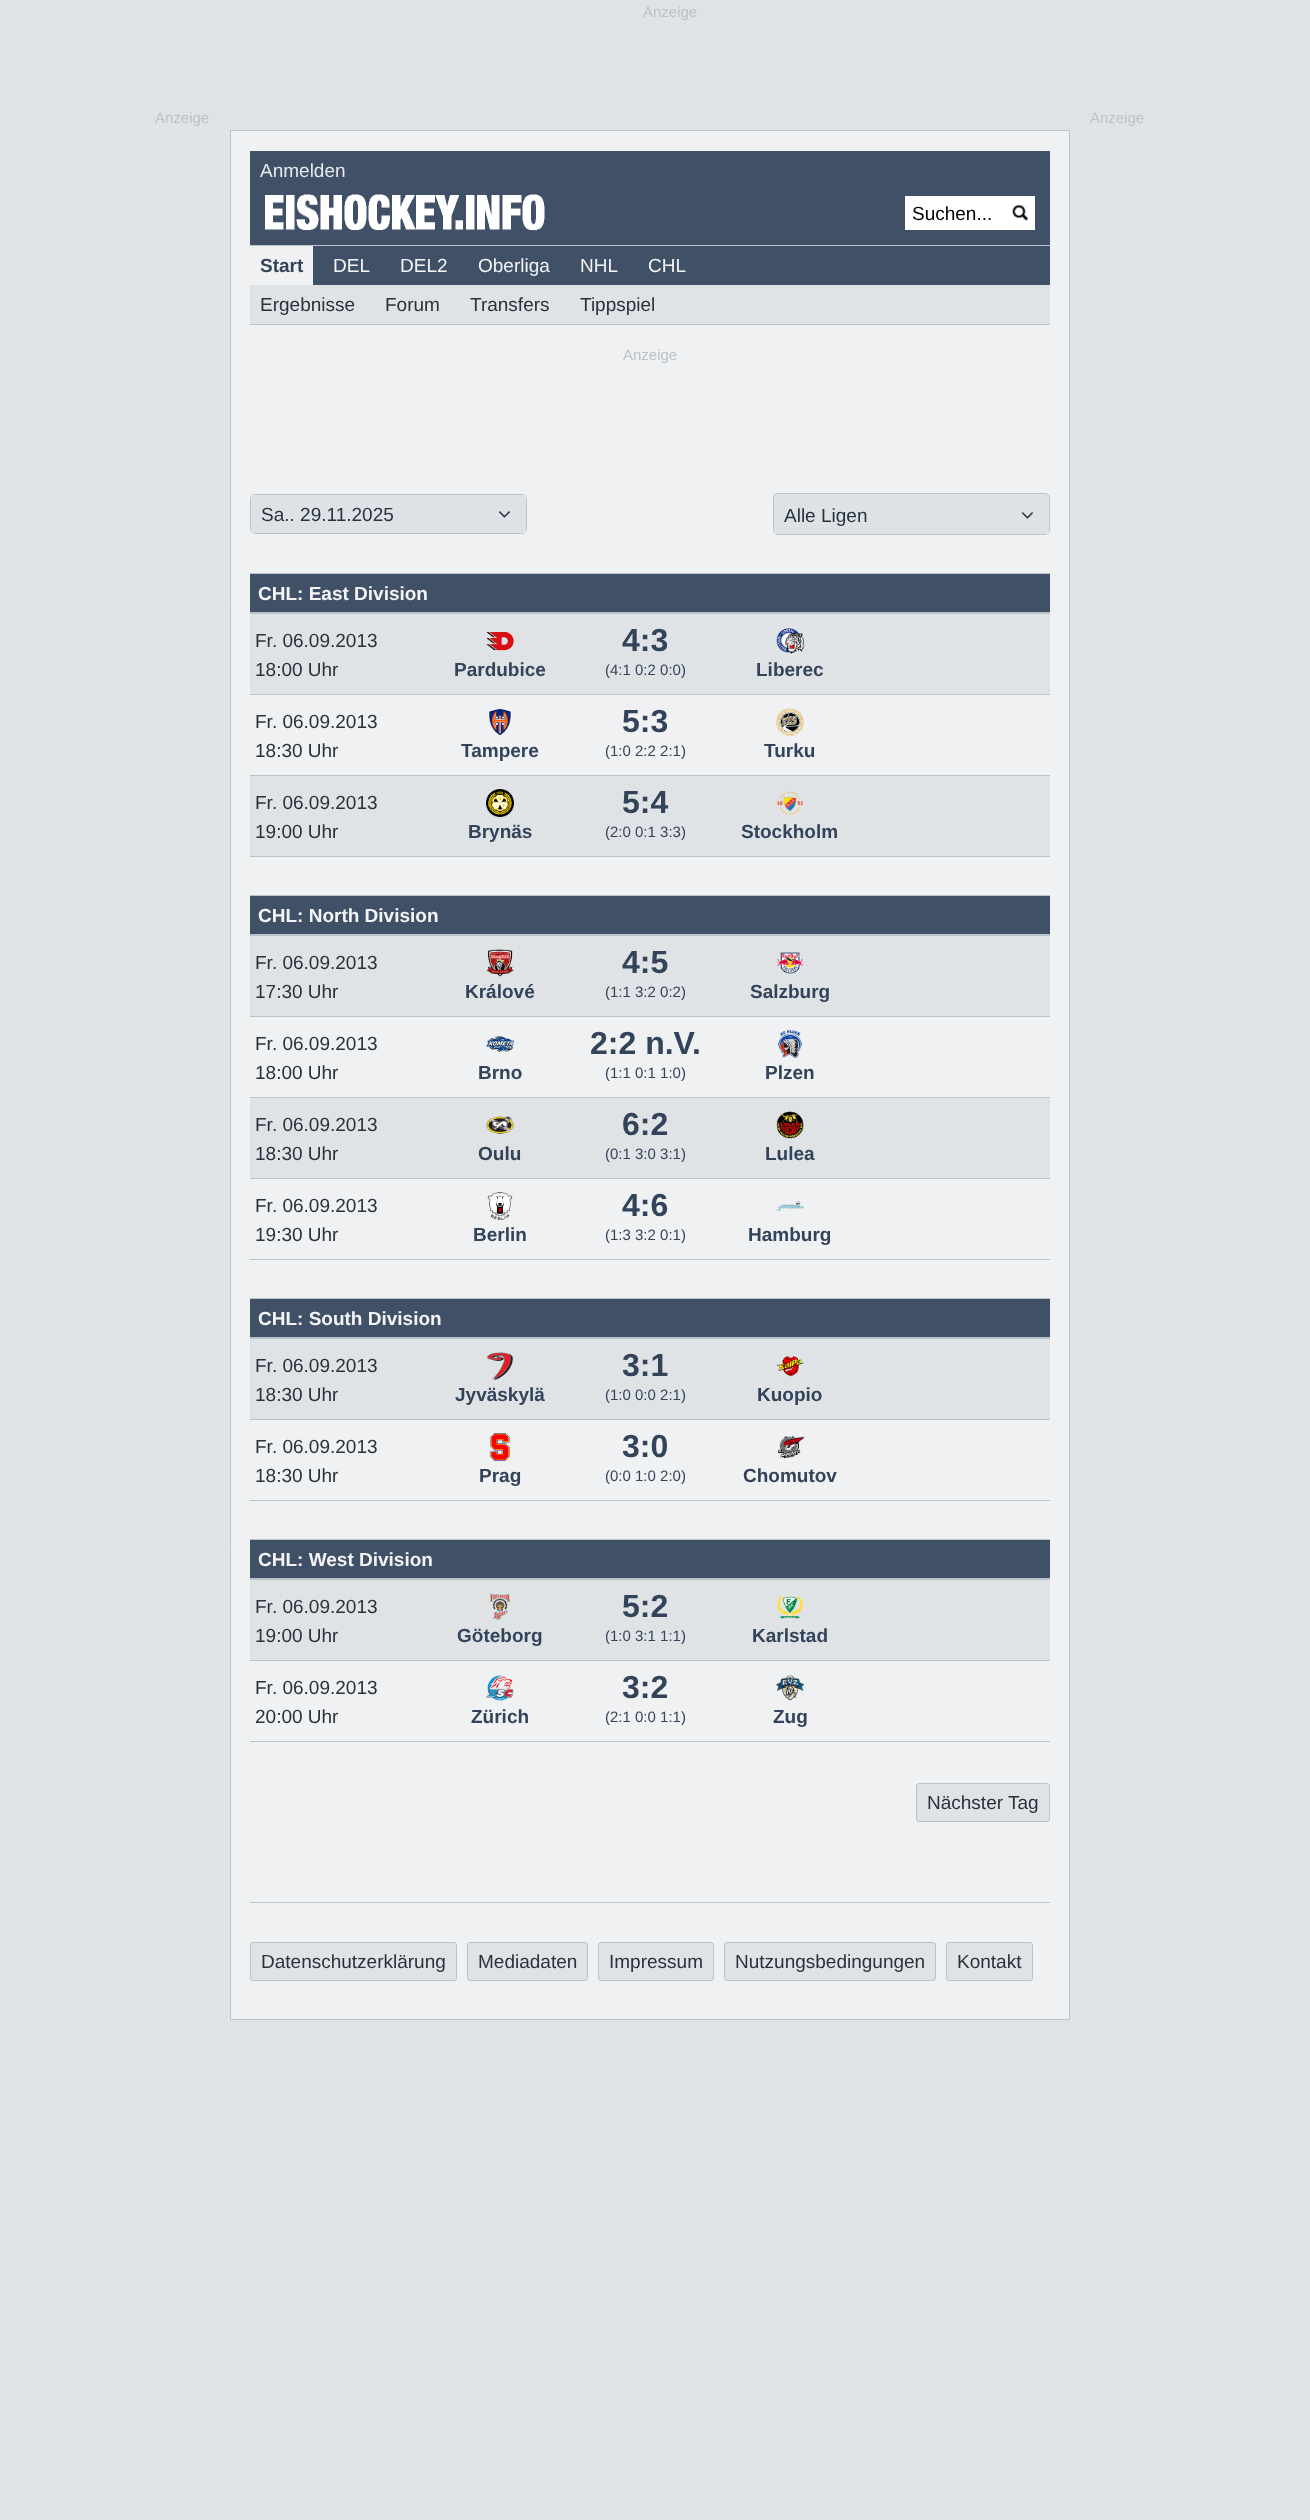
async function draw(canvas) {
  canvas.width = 1310;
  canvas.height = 2520;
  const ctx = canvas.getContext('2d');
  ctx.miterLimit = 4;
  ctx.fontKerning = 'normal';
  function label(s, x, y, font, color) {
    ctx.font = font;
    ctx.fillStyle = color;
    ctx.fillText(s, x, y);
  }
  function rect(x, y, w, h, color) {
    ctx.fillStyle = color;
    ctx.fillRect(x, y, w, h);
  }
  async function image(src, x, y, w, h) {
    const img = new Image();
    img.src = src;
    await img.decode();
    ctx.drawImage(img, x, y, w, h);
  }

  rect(0, 0, 1310, 2520, '#e0e3e6');
  label('Anzeige', 643, 17, '15px Liberation Sans', '#bac3c8');
  ctx.fillStyle = '#eff1f2';
  ctx.beginPath();
  ctx.rect(230.5, 130.5, 839, 1889);
  ctx.fill();
  ctx.strokeStyle = '#b9c4c8';
  ctx.stroke();
  label('Anzeige', 155, 123, '15px Liberation Sans', '#bac3c8');
  label('Anzeige', 1090, 123, '15px Liberation Sans', '#bac3c8');
  rect(250, 151, 800, 94, '#405167');
  label('Anmelden', 260, 177, '19px Liberation Sans', '#e5e9ec');
  await image('assets/img1.png', 265, 194, 280, 37);
  rect(905, 196, 130, 34, '#fff');
  label('Suchen...', 912, 220, '19px Liberation Sans', '#000');
  await image('assets/img2.png', 1012, 204, 17, 17);
  rect(250, 245, 800, 1, '#b9c4c8');
  rect(313, 246, 737, 39, '#405167');
  label('Start', 260, 272, 'bold 19px Liberation Sans', '#33435a');
  label('DEL', 333, 272, '19px Liberation Sans', '#f4f4f6');
  label('DEL2', 400, 272, '19px Liberation Sans', '#f4f4f6');
  label('Oberliga', 478, 272, '19px Liberation Sans', '#f4f4f6');
  label('NHL', 580, 272, '19px Liberation Sans', '#f4f4f6');
  label('CHL', 648, 272, '19px Liberation Sans', '#f4f4f6');
  rect(250, 285, 800, 39, '#e0e3e6');
  label('Ergebnisse', 260, 311, '19px Liberation Sans', '#29313c');
  label('Forum', 385, 311, '19px Liberation Sans', '#29313c');
  label('Transfers', 470, 311, '19px Liberation Sans', '#29313c');
  label('Tippspiel', 580, 311, '19px Liberation Sans', '#29313c');
  rect(250, 324, 800, 1, '#b9c4c8');
  label('Anzeige', 623, 360, '15px Liberation Sans', '#bac3c8');
  ctx.beginPath();
  ctx.roundRect(250.5, 494.5, 276, 39, 4.5);
  ctx.strokeStyle = '#bac4c9';
  ctx.stroke();
  rect(251, 495, 275, 38, '#dde2e6');
  label('Sa.. 29.11.2025', 261, 521, '19px Liberation Sans', '#29313c');
  await image('assets/img3.png', 498, 511, 12, 7);
  ctx.fillStyle = '#dde2e6';
  ctx.beginPath();
  ctx.roundRect(773.5, 493.5, 276, 41, 4.5);
  ctx.fill();
  ctx.stroke();
  rect(774, 496, 275, 38, '#dde2e6');
  label('Alle Ligen', 784, 522, '19px Liberation Sans', '#29313c');
  await image('assets/img3.png', 1021, 512, 12, 7);
  rect(250, 573, 800, 1, '#b9c4c8');
  rect(250, 612, 800, 2, '#b9c4c8');
  rect(250, 574, 800, 38, '#405167');
  label('CHL: East Division', 258, 600, 'bold 19px Liberation Sans', '#f4f4f6');
  rect(250, 614, 800, 80, '#e0e3e6');
  label('Fr. 06.09.2013', 255, 647, '19px Liberation Sans', '#29313c');
  label('18:00 Uhr', 255, 676, '19px Liberation Sans', '#29313c');
  await image('assets/img4.png', 486, 631, 28, 20);
  label('Pardubice', 454, 676, 'bold 19px Liberation Sans', '#33435a');
  label('4:3', 622, 651, 'bold 32px Liberation Sans', '#33435a');
  label('(4:1 0:2 0:0)', 605, 675, '15px Liberation Sans', '#33435a');
  await image('assets/img5.png', 776, 627, 28, 28);
  label('Liberec', 756, 676, 'bold 19px Liberation Sans', '#33435a');
  rect(250, 694, 800, 1, '#b9c4c8');
  label('Fr. 06.09.2013', 255, 728, '19px Liberation Sans', '#29313c');
  label('18:30 Uhr', 255, 757, '19px Liberation Sans', '#29313c');
  await image('assets/img6.png', 488, 708, 24, 28);
  label('Tampere', 461, 757, 'bold 19px Liberation Sans', '#33435a');
  label('5:3', 622, 732, 'bold 32px Liberation Sans', '#33435a');
  label('(1:0 2:2 2:1)', 605, 756, '15px Liberation Sans', '#33435a');
  await image('assets/img7.png', 776, 708, 28, 28);
  label('Turku', 764, 757, 'bold 19px Liberation Sans', '#33435a');
  rect(250, 775, 800, 1, '#b9c4c8');
  rect(250, 776, 800, 80, '#e0e3e6');
  label('Fr. 06.09.2013', 255, 809, '19px Liberation Sans', '#29313c');
  label('19:00 Uhr', 255, 838, '19px Liberation Sans', '#29313c');
  await image('assets/img8.png', 486, 789, 28, 28);
  label('Brynäs', 468, 838, 'bold 19px Liberation Sans', '#33435a');
  label('5:4', 622, 813, 'bold 32px Liberation Sans', '#33435a');
  label('(2:0 0:1 3:3)', 605, 837, '15px Liberation Sans', '#33435a');
  await image('assets/img9.png', 777, 790, 27, 26);
  label('Stockholm', 741, 838, 'bold 19px Liberation Sans', '#33435a');
  rect(250, 856, 800, 1, '#b9c4c8');
  rect(250, 895, 800, 1, '#b9c4c8');
  rect(250, 934, 800, 2, '#b9c4c8');
  rect(250, 896, 800, 38, '#405167');
  label('CHL: North Division', 258, 922, 'bold 19px Liberation Sans', '#f4f4f6');
  rect(250, 936, 800, 80, '#e0e3e6');
  label('Fr. 06.09.2013', 255, 969, '19px Liberation Sans', '#29313c');
  label('17:30 Uhr', 255, 998, '19px Liberation Sans', '#29313c');
  await image('assets/img10.png', 486, 949, 28, 28);
  label('Králové', 465, 998, 'bold 19px Liberation Sans', '#33435a');
  label('4:5', 622, 973, 'bold 32px Liberation Sans', '#33435a');
  label('(1:1 3:2 0:2)', 605, 997, '15px Liberation Sans', '#33435a');
  await image('assets/img11.png', 776, 952, 28, 22);
  label('Salzburg', 750, 998, 'bold 19px Liberation Sans', '#33435a');
  rect(250, 1016, 800, 1, '#b9c4c8');
  label('Fr. 06.09.2013', 255, 1050, '19px Liberation Sans', '#29313c');
  label('18:00 Uhr', 255, 1079, '19px Liberation Sans', '#29313c');
  await image('assets/img12.png', 486, 1036, 28, 16);
  label('Brno', 478, 1079, 'bold 19px Liberation Sans', '#33435a');
  label('2:2 n.V.', 590, 1054, 'bold 32px Liberation Sans', '#33435a');
  label('(1:1 0:1 1:0)', 605, 1078, '15px Liberation Sans', '#33435a');
  await image('assets/img13.png', 778, 1030, 24, 28);
  label('Plzen', 765, 1079, 'bold 19px Liberation Sans', '#33435a');
  rect(250, 1097, 800, 1, '#b9c4c8');
  rect(250, 1098, 800, 80, '#e0e3e6');
  label('Fr. 06.09.2013', 255, 1131, '19px Liberation Sans', '#29313c');
  label('18:30 Uhr', 255, 1160, '19px Liberation Sans', '#29313c');
  await image('assets/img14.png', 486, 1116, 28, 18);
  label('Oulu', 478, 1160, 'bold 19px Liberation Sans', '#33435a');
  label('6:2', 622, 1135, 'bold 32px Liberation Sans', '#33435a');
  label('(0:1 3:0 3:1)', 605, 1159, '15px Liberation Sans', '#33435a');
  await image('assets/img15.png', 776, 1111, 28, 28);
  label('Lulea', 765, 1160, 'bold 19px Liberation Sans', '#33435a');
  rect(250, 1178, 800, 1, '#b9c4c8');
  label('Fr. 06.09.2013', 255, 1212, '19px Liberation Sans', '#29313c');
  label('19:30 Uhr', 255, 1241, '19px Liberation Sans', '#29313c');
  await image('assets/img16.png', 487, 1192, 26, 28);
  label('Berlin', 473, 1241, 'bold 19px Liberation Sans', '#33435a');
  label('4:6', 622, 1216, 'bold 32px Liberation Sans', '#33435a');
  label('(1:3 3:2 0:1)', 605, 1240, '15px Liberation Sans', '#33435a');
  await image('assets/img17.png', 776, 1201, 28, 11);
  label('Hamburg', 748, 1241, 'bold 19px Liberation Sans', '#33435a');
  rect(250, 1259, 800, 1, '#b9c4c8');
  rect(250, 1298, 800, 1, '#b9c4c8');
  rect(250, 1337, 800, 2, '#b9c4c8');
  rect(250, 1299, 800, 38, '#405167');
  label('CHL: South Division', 258, 1325, 'bold 19px Liberation Sans', '#f4f4f6');
  rect(250, 1339, 800, 80, '#e0e3e6');
  label('Fr. 06.09.2013', 255, 1372, '19px Liberation Sans', '#29313c');
  label('18:30 Uhr', 255, 1401, '19px Liberation Sans', '#29313c');
  await image('assets/img18.png', 486, 1352, 28, 28);
  label('Jyväskylä', 455, 1401, 'bold 19px Liberation Sans', '#33435a');
  label('3:1', 622, 1376, 'bold 32px Liberation Sans', '#33435a');
  label('(1:0 0:0 2:1)', 605, 1400, '15px Liberation Sans', '#33435a');
  await image('assets/img19.png', 776, 1355, 28, 22);
  label('Kuopio', 757, 1401, 'bold 19px Liberation Sans', '#33435a');
  rect(250, 1419, 800, 1, '#b9c4c8');
  label('Fr. 06.09.2013', 255, 1453, '19px Liberation Sans', '#29313c');
  label('18:30 Uhr', 255, 1482, '19px Liberation Sans', '#29313c');
  await image('assets/img20.png', 489, 1433, 21, 28);
  label('Prag', 479, 1482, 'bold 19px Liberation Sans', '#33435a');
  label('3:0', 622, 1457, 'bold 32px Liberation Sans', '#33435a');
  label('(0:0 1:0 2:0)', 605, 1481, '15px Liberation Sans', '#33435a');
  await image('assets/img21.png', 778, 1436, 26, 23);
  label('Chomutov', 743, 1482, 'bold 19px Liberation Sans', '#33435a');
  rect(250, 1500, 800, 1, '#b9c4c8');
  rect(250, 1539, 800, 1, '#b9c4c8');
  rect(250, 1578, 800, 2, '#b9c4c8');
  rect(250, 1540, 800, 38, '#405167');
  label('CHL: West Division', 258, 1566, 'bold 19px Liberation Sans', '#f4f4f6');
  rect(250, 1580, 800, 80, '#e0e3e6');
  label('Fr. 06.09.2013', 255, 1613, '19px Liberation Sans', '#29313c');
  label('19:00 Uhr', 255, 1642, '19px Liberation Sans', '#29313c');
  await image('assets/img22.png', 489, 1593, 22, 28);
  label('Göteborg', 457, 1642, 'bold 19px Liberation Sans', '#33435a');
  label('5:2', 622, 1617, 'bold 32px Liberation Sans', '#33435a');
  label('(1:0 3:1 1:1)', 605, 1641, '15px Liberation Sans', '#33435a');
  await image('assets/img23.png', 776, 1595, 28, 24);
  label('Karlstad', 752, 1642, 'bold 19px Liberation Sans', '#33435a');
  rect(250, 1660, 800, 1, '#b9c4c8');
  label('Fr. 06.09.2013', 255, 1694, '19px Liberation Sans', '#29313c');
  label('20:00 Uhr', 255, 1723, '19px Liberation Sans', '#29313c');
  await image('assets/img24.png', 486, 1675, 28, 26);
  label('Zürich', 471, 1723, 'bold 19px Liberation Sans', '#33435a');
  label('3:2', 622, 1698, 'bold 32px Liberation Sans', '#33435a');
  label('(2:1 0:0 1:1)', 605, 1722, '15px Liberation Sans', '#33435a');
  await image('assets/img25.png', 776, 1675, 28, 26);
  label('Zug', 773, 1723, 'bold 19px Liberation Sans', '#33435a');
  rect(250, 1741, 800, 1, '#b9c4c8');
  ctx.fillStyle = '#e0e3e6';
  ctx.beginPath();
  ctx.roundRect(916.5, 1783.5, 133, 38, 2.5);
  ctx.fill();
  ctx.strokeStyle = '#bac3c8';
  ctx.stroke();
  label('Nächster Tag', 927, 1809, '19px Liberation Sans', '#29313c');
  rect(250, 1902, 800, 1, '#bac3c8');
  ctx.fillStyle = '#e0e3e6';
  ctx.beginPath();
  ctx.roundRect(250.5, 1942.5, 206, 38, 2.5);
  ctx.fill();
  ctx.stroke();
  label('Datenschutzerklärung', 261, 1968, '19px Liberation Sans', '#29313c');
  ctx.fillStyle = '#e0e3e6';
  ctx.beginPath();
  ctx.roundRect(467.5, 1942.5, 120, 38, 2.5);
  ctx.fill();
  ctx.stroke();
  label('Mediadaten', 478, 1968, '19px Liberation Sans', '#29313c');
  ctx.fillStyle = '#e0e3e6';
  ctx.beginPath();
  ctx.roundRect(598.5, 1942.5, 115, 38, 2.5);
  ctx.fill();
  ctx.stroke();
  label('Impressum', 609, 1968, '19px Liberation Sans', '#29313c');
  ctx.fillStyle = '#e0e3e6';
  ctx.beginPath();
  ctx.roundRect(724.5, 1942.5, 211, 38, 2.5);
  ctx.fill();
  ctx.stroke();
  label('Nutzungsbedingungen', 735, 1968, '19px Liberation Sans', '#29313c');
  ctx.fillStyle = '#e0e3e6';
  ctx.beginPath();
  ctx.roundRect(946.5, 1942.5, 86, 38, 2.5);
  ctx.fill();
  ctx.stroke();
  label('Kontakt', 957, 1968, '19px Liberation Sans', '#29313c');
}

draw(document.querySelector('canvas'));
